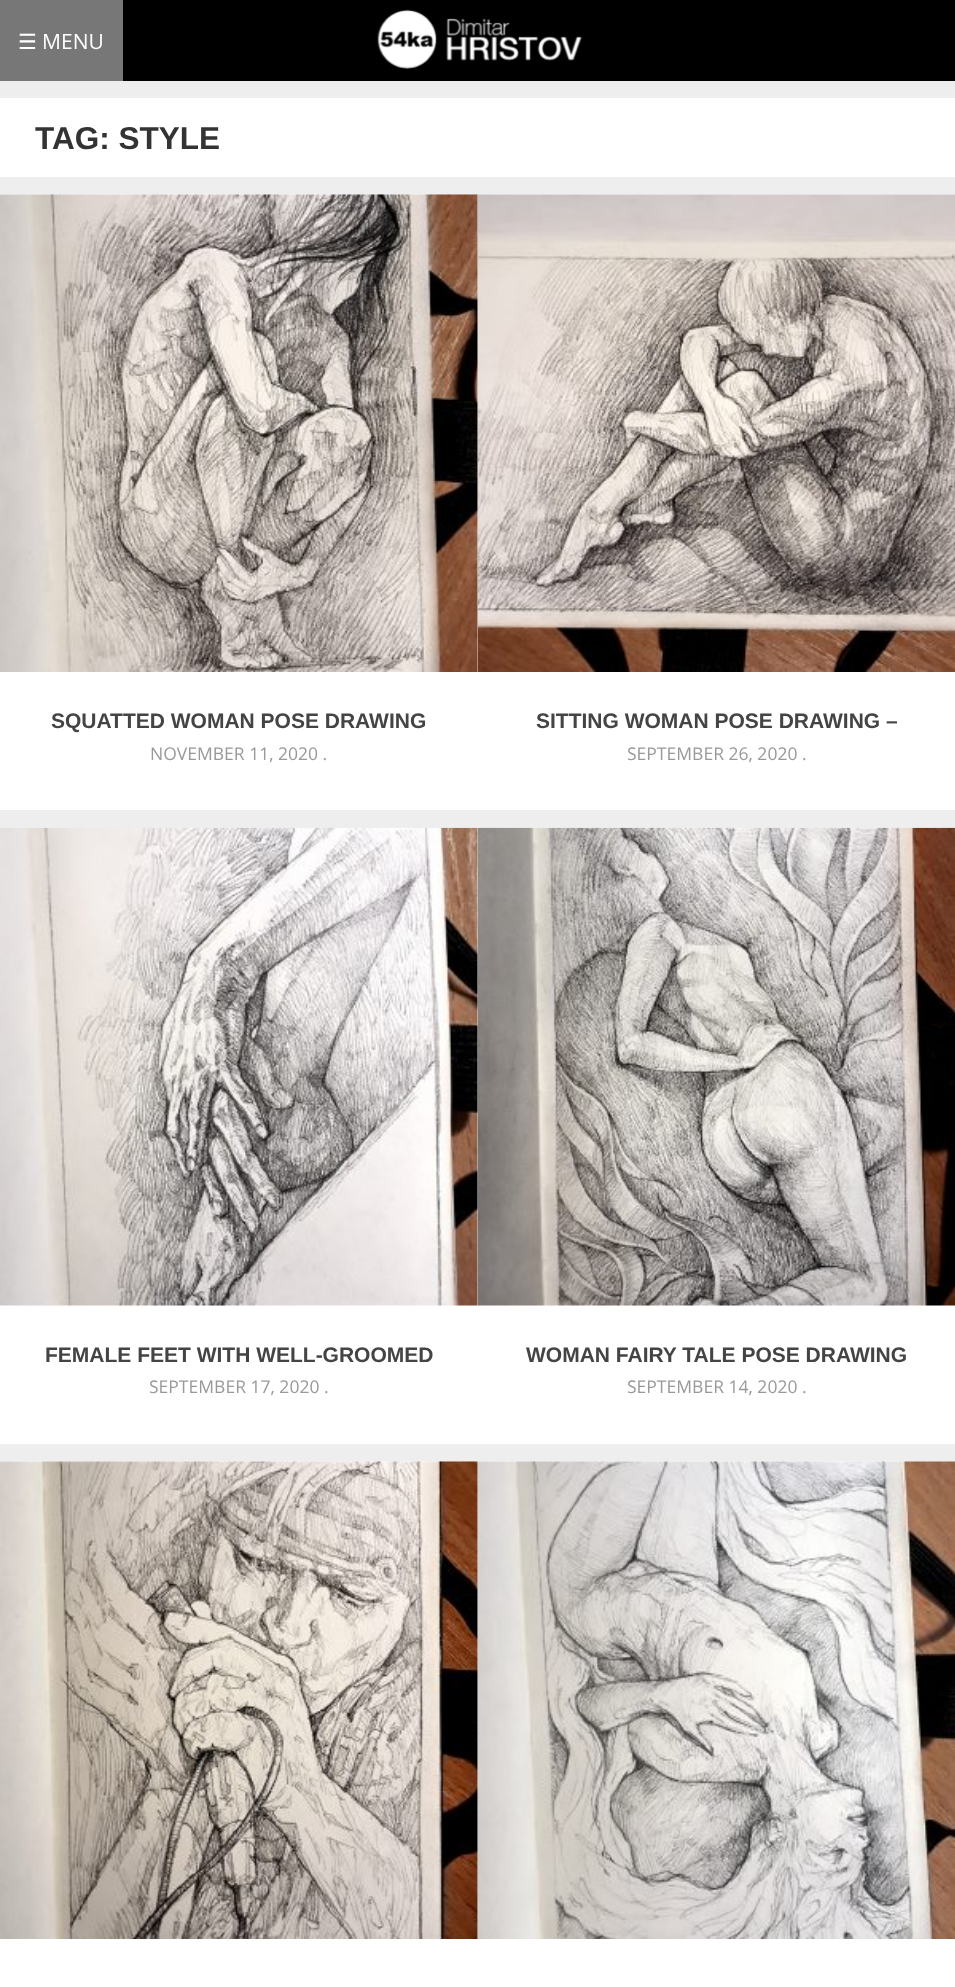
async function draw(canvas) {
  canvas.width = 955;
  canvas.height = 1987;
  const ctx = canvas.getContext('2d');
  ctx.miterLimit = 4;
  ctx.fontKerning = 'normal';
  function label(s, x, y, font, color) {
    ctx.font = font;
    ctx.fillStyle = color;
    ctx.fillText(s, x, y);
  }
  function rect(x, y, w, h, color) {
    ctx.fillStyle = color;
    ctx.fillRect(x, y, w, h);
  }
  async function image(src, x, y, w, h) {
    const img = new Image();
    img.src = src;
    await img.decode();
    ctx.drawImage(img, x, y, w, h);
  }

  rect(0, 0, 955, 1987, '#eee');
  rect(123, 0, 832, 81, '#000');
  await image('assets/img1.png', 377, 9, 205, 60);
  rect(0, 0, 123, 81, '#777');
  label('☰', 18, 49, '21px DejaVu Sans', '#fff');
  label('MENU', 42, 49, '21px Open Sans', '#fff');
  rect(0, 98, 955, 79, '#fff');
  label('TAG: STYLE', 35, 149, 'bold 31.5px Liberation Sans', '#333');
  rect(0, 194, 955, 616, '#fff');
  await image('assets/img2.png', 0, 194, 478, 478);
  label('SQUATTED WOMAN POSE DRAWING', 51, 728, 'bold 21px Liberation Sans', '#444');
  label('NOVEMBER 11, 2020 .', 150, 760, '17.5px Open Sans', '#999');
  await image('assets/img3.png', 477, 194, 478, 478);
  label('SITTING WOMAN POSE DRAWING –', 536, 728, 'bold 21px Liberation Sans', '#444');
  label('SEPTEMBER 26, 2020 .', 627, 760, '17.5px Open Sans', '#999');
  rect(0, 828, 478, 616, '#fff');
  await image('assets/img4.png', 0, 827, 478, 479);
  label('FEMALE FEET WITH WELL-GROOMED', 45, 1362, 'bold 21px Liberation Sans', '#444');
  label('SEPTEMBER 17, 2020 .', 149, 1393, '17.5px Open Sans', '#999');
  rect(478, 1305, 477, 139, '#fff');
  await image('assets/img5.png', 477, 827, 478, 479);
  label('WOMAN FAIRY TALE POSE DRAWING', 526, 1362, 'bold 21px Liberation Sans', '#444');
  label('SEPTEMBER 14, 2020 .', 627, 1393, '17.5px Open Sans', '#999');
  rect(0, 1461, 955, 526, '#fff');
  await image('assets/img6.png', 0, 1461, 478, 478);
  await image('assets/img7.png', 477, 1461, 478, 478);
}

draw(document.querySelector('canvas'));
